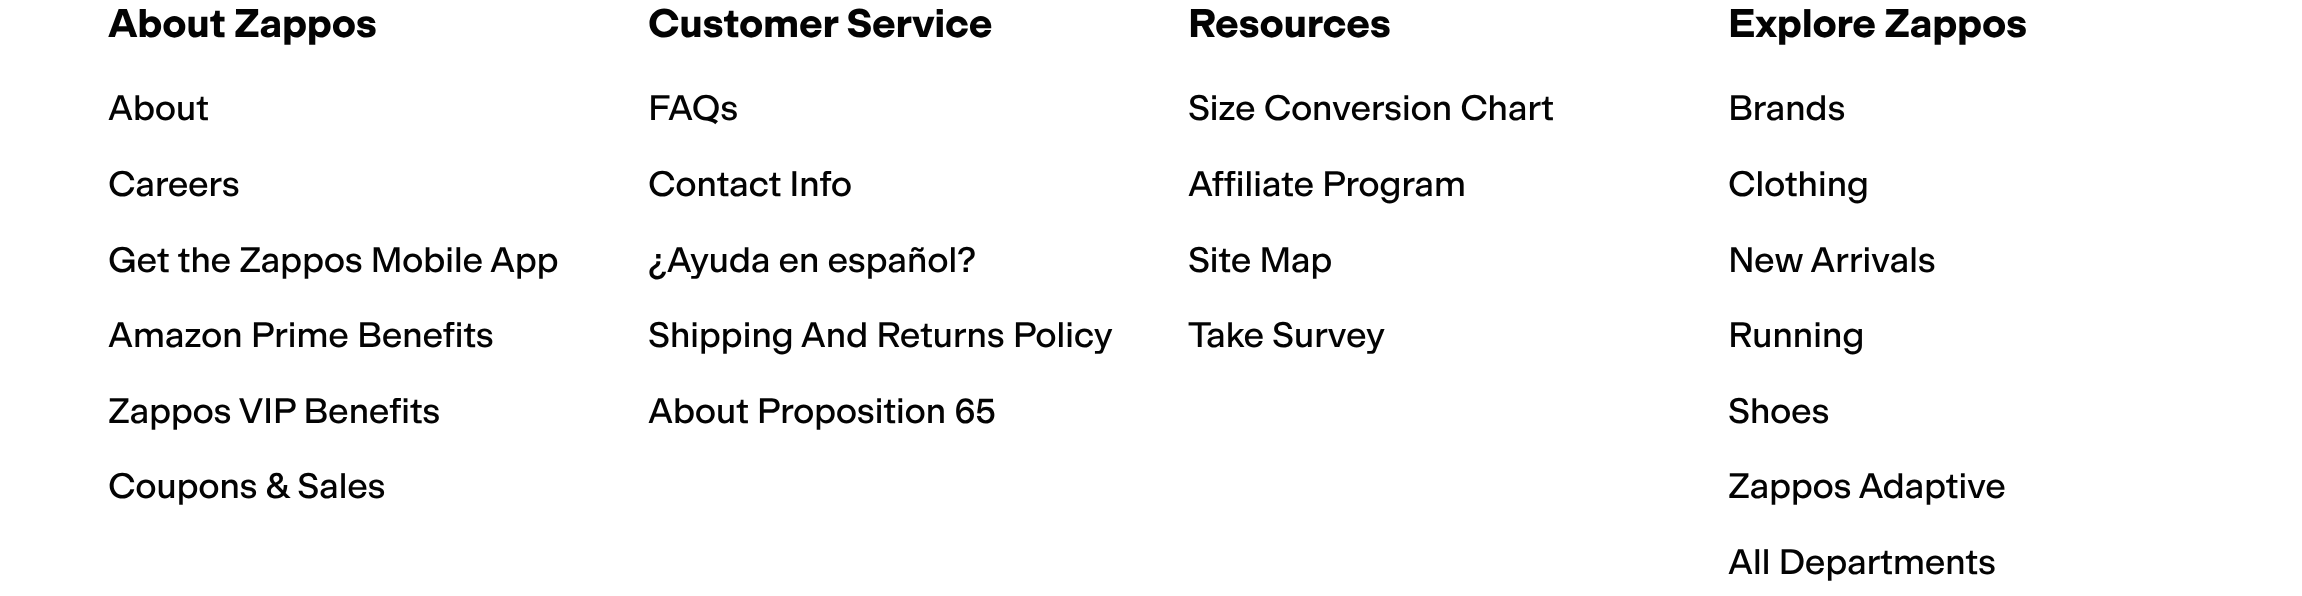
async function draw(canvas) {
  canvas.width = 2302;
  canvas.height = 596;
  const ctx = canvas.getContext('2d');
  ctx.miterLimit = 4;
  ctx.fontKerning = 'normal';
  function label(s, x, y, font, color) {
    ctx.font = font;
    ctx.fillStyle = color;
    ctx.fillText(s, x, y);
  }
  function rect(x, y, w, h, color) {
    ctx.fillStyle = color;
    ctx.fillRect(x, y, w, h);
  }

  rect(0, 0, 2302, 596, '#fff');
  ctx.letterSpacing = '-0.25px';
  label('About Zappos', 108, 37, 'bold 40.5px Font', '#030303');
  ctx.letterSpacing = '-0.35px';
  label('About', 108, 120, '36px Font', '#030303');
  label('Careers', 108, 196, '36px Font', '#030303');
  label('Get the Zappos Mobile App', 108, 272, '36px Font', '#030303');
  label('Amazon Prime Benefits', 108, 347, '36px Font', '#030303');
  label('Zappos VIP Benefits', 108, 423, '36px Font', '#030303');
  label('Coupons & Sales', 108, 498, '36px Font', '#030303');
  ctx.letterSpacing = '-0.25px';
  label('Customer Service', 648, 37, 'bold 40.5px Font', '#030303');
  ctx.letterSpacing = '-0.35px';
  label('FAQs', 648, 120, '36px Font', '#030303');
  label('Contact Info', 648, 196, '36px Font', '#030303');
  label('¿Ayuda en español?', 648, 272, '36px Font', '#030303');
  label('Shipping And Returns Policy', 648, 347, '36px Font', '#030303');
  label('About Proposition 65', 648, 423, '36px Font', '#030303');
  ctx.letterSpacing = '-0.25px';
  label('Resources', 1188, 37, 'bold 40.5px Font', '#030303');
  ctx.letterSpacing = '-0.35px';
  label('Size Conversion Chart', 1188, 120, '36px Font', '#030303');
  label('Affiliate Program', 1188, 196, '36px Font', '#030303');
  label('Site Map', 1188, 272, '36px Font', '#030303');
  label('Take Survey', 1188, 347, '36px Font', '#030303');
  ctx.letterSpacing = '-0.25px';
  label('Explore Zappos', 1728, 37, 'bold 40.5px Font', '#030303');
  ctx.letterSpacing = '-0.35px';
  label('Brands', 1728, 120, '36px Font', '#030303');
  label('Clothing', 1728, 196, '36px Font', '#030303');
  label('New Arrivals', 1728, 272, '36px Font', '#030303');
  label('Running', 1728, 347, '36px Font', '#030303');
  label('Shoes', 1728, 423, '36px Font', '#030303');
  label('Zappos Adaptive', 1728, 498, '36px Font', '#030303');
  label('All Departments', 1728, 574, '36px Font', '#030303');
}

draw(document.querySelector('canvas'));
